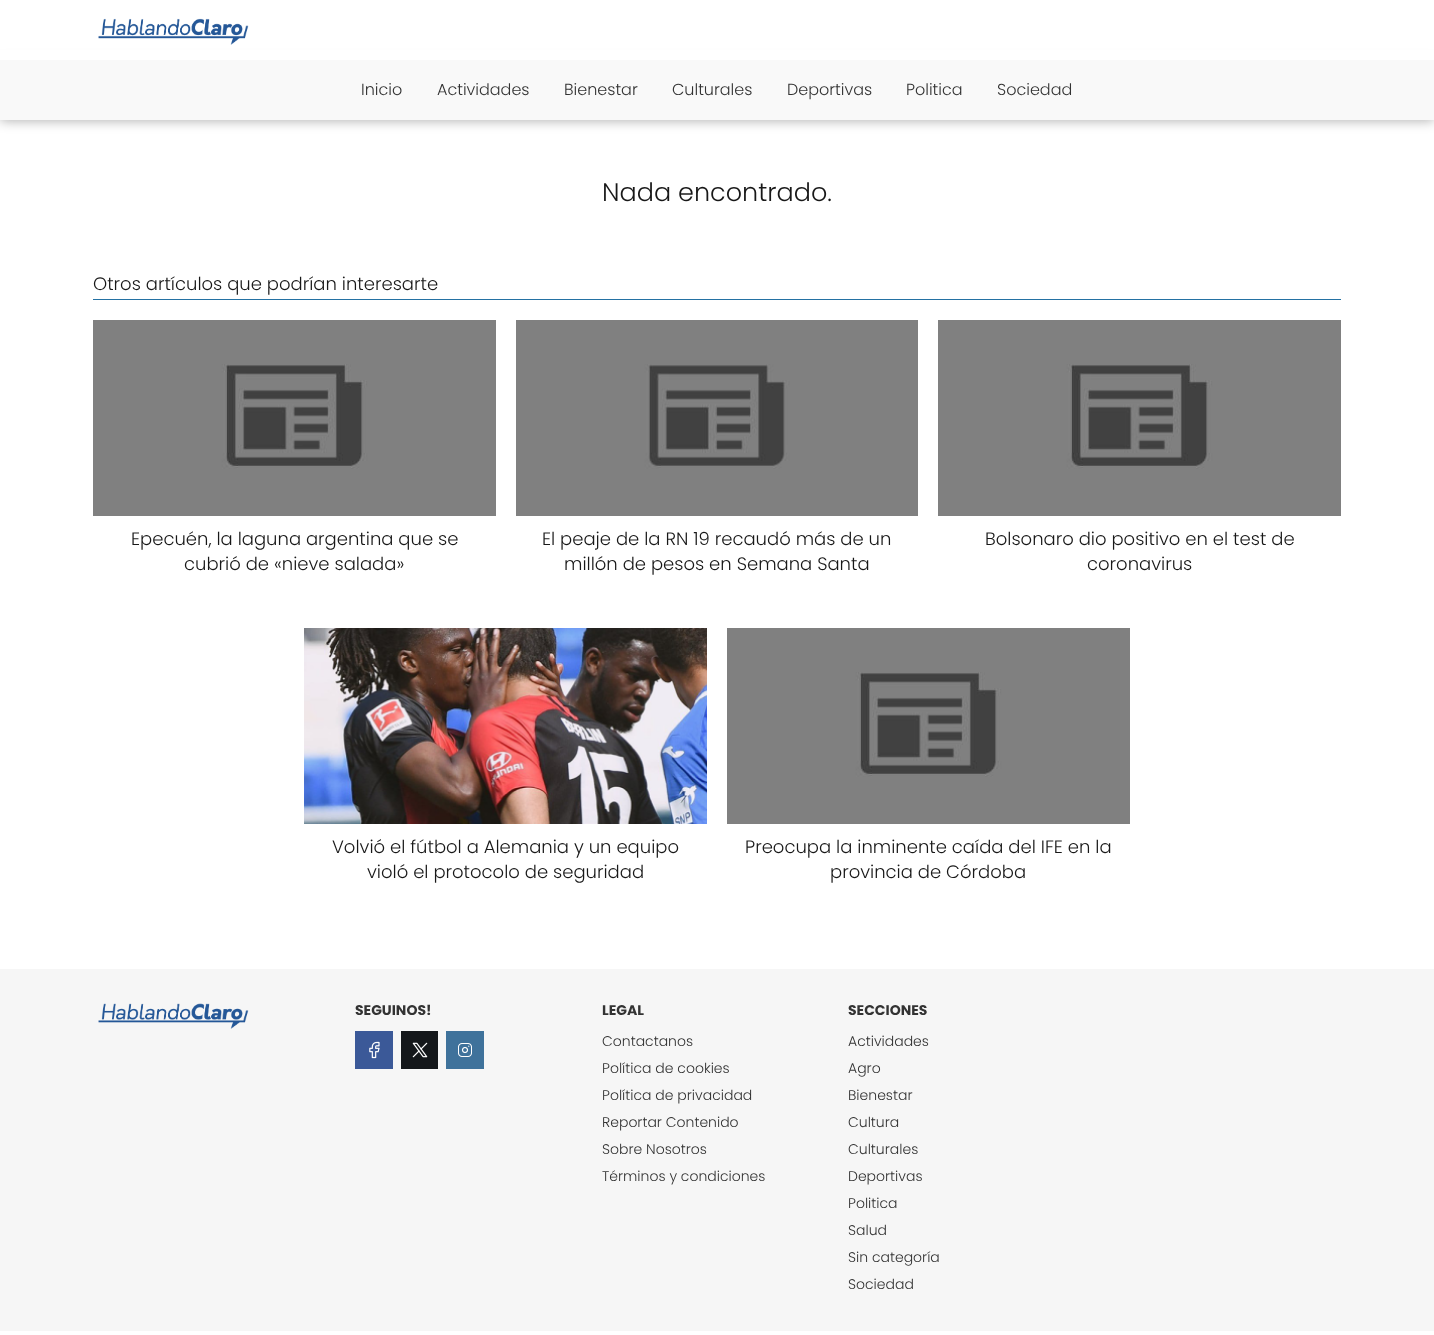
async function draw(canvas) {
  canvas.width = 1434;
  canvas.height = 1335;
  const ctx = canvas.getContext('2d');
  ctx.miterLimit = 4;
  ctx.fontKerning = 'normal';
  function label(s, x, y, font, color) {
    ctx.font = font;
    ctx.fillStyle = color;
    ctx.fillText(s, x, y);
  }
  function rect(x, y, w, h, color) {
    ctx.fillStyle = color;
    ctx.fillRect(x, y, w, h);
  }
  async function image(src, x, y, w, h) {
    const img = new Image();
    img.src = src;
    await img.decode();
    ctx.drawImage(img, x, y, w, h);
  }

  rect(0, 0, 1434, 1335, '#fff');
  ctx.fillStyle = '#0000004d';
  ctx.filter = 'blur(6px)';
  ctx.beginPath();
  ctx.rect(0, 61, 1434, 60);
  ctx.fill();
  ctx.filter = 'none';
  rect(0, 50, 1434, 10, '#fff');
  await image('assets/img1.png', 98, 18, 151, 27);
  rect(0, 60, 1434, 60, '#f9f9f9');
  label('Inicio', 361, 95, '300 16px Poppins', '#333');
  label('Actividades', 437, 95, '300 16px Poppins', '#333');
  label('Bienestar', 564, 95, '300 16px Poppins', '#333');
  label('Culturales', 672, 95, '300 16px Poppins', '#333');
  label('Deportivas', 787, 95, '300 16px Poppins', '#333');
  label('Politica', 906, 95, '300 16px Poppins', '#333');
  label('Sociedad', 997, 95, '300 16px Poppins', '#333');
  label('Nada encontrado.', 602, 201, '300 25.5px Poppins', '#181818');
  rect(93, 299, 1248, 1, '#2471a3');
  label('Otros artículos que podrían interesarte', 93, 290, '300 18px Poppins', '#181818');
  await image('assets/img2.png', 93, 320, 403, 196);
  label('Epecuén, la laguna argentina que se', 131, 545, '300 18px Poppins', '#181818');
  label('cubrió de «nieve salada»', 184, 570, '300 18px Poppins', '#181818');
  await image('assets/img3.png', 516, 320, 402, 196);
  label('El peaje de la RN 19 recaudó más de un', 542, 545, '300 18px Poppins', '#181818');
  label('millón de pesos en Semana Santa', 564, 570, '300 18px Poppins', '#181818');
  await image('assets/img4.png', 938, 320, 403, 196);
  label('Bolsonaro dio positivo en el test de', 985, 545, '300 18px Poppins', '#181818');
  label('coronavirus', 1087, 570, '300 18px Poppins', '#181818');
  await image('assets/img5.png', 304, 628, 403, 196);
  label('Volvió el fútbol a Alemania y un equipo', 332, 853, '300 18px Poppins', '#181818');
  label('violó el protocolo de seguridad', 367, 878, '300 18px Poppins', '#181818');
  await image('assets/img4.png', 727, 628, 403, 196);
  label('Preocupa la inminente caída del IFE en la', 745, 853, '300 18px Poppins', '#181818');
  label('provincia de Córdoba', 830, 878, '300 18px Poppins', '#181818');
  rect(0, 969, 1434, 362, '#f6f6f6');
  await image('assets/img6.png', 98, 1003, 151, 26);
  label('SEGUINOS!', 355, 1015, 'bold 14px Poppins', '#333');
  rect(355, 1031, 38, 38, '#3b5998');
  await image('assets/img7.png', 369, 1041, 11, 18);
  rect(401, 1031, 37, 38, '#14171a');
  await image('assets/img8.png', 412, 1042, 16, 16);
  rect(446, 1031, 38, 38, '#3f729b');
  await image('assets/img9.png', 458, 1043, 14, 14);
  label('LEGAL', 602, 1015, 'bold 14px Poppins', '#333');
  label('Contactanos', 602, 1046, '300 14px Poppins', '#333');
  label('Política de cookies', 602, 1073, '300 14px Poppins', '#333');
  label('Política de privacidad', 602, 1100, '300 14px Poppins', '#333');
  label('Reportar Contenido', 602, 1127, '300 14px Poppins', '#333');
  label('Sobre Nosotros', 602, 1154, '300 14px Poppins', '#333');
  label('Términos y condiciones', 602, 1181, '300 14px Poppins', '#333');
  label('SECCIONES', 848, 1015, 'bold 14px Poppins', '#333');
  label('Actividades', 848, 1046, '300 14px Poppins', '#333');
  label('Agro', 848, 1073, '300 14px Poppins', '#333');
  label('Bienestar', 848, 1100, '300 14px Poppins', '#333');
  label('Cultura', 848, 1127, '300 14px Poppins', '#333');
  label('Culturales', 848, 1154, '300 14px Poppins', '#333');
  label('Deportivas', 848, 1181, '300 14px Poppins', '#333');
  label('Politica', 848, 1208, '300 14px Poppins', '#333');
  label('Salud', 848, 1235, '300 14px Poppins', '#333');
  label('Sin categoría', 848, 1262, '300 14px Poppins', '#333');
  label('Sociedad', 848, 1289, '300 14px Poppins', '#333');
}

draw(document.querySelector('canvas'));
